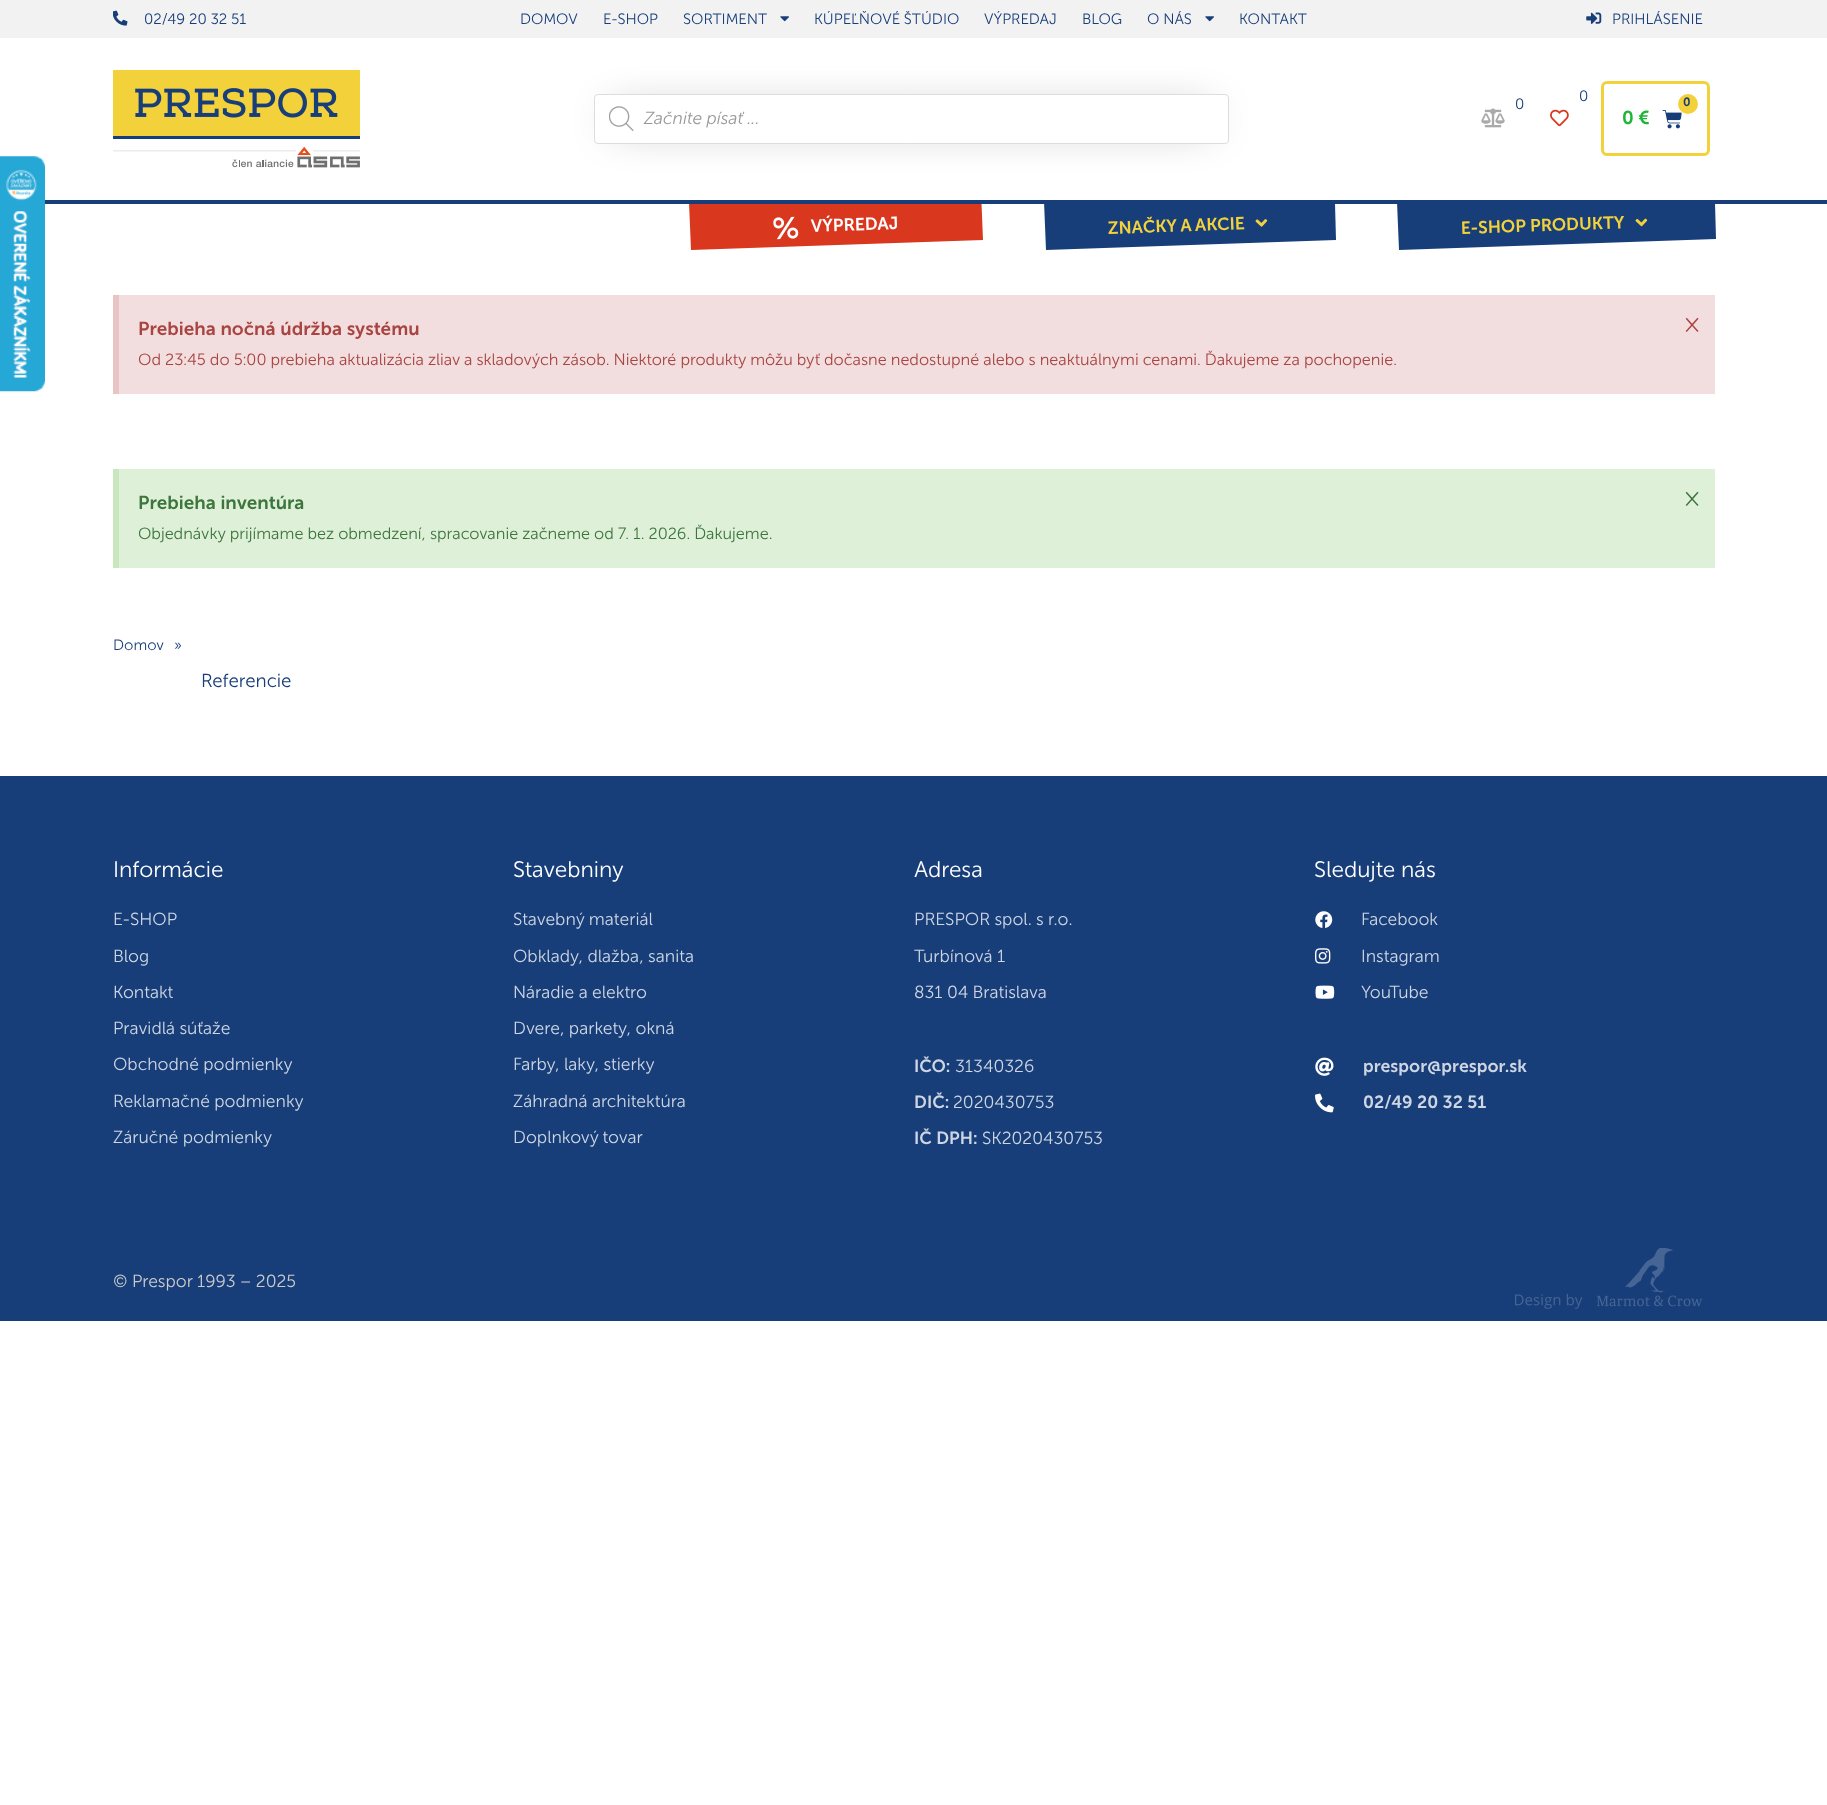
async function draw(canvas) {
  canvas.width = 1827;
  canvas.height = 1805;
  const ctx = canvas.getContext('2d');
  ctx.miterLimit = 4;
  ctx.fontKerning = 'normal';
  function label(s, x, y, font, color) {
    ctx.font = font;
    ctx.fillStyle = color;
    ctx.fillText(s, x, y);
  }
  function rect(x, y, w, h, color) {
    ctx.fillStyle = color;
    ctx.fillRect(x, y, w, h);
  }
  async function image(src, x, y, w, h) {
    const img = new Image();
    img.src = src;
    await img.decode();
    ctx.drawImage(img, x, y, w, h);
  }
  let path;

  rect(0, 0, 1827, 1805, '#fff');
  await image('assets/img1.png', 0, 156, 45, 236);
  rect(0, 0, 1827, 38, '#f2f2f2');
  await image('assets/img2.png', 113, 10, 15, 16);
  label('02/49 20 32 51', 144, 24, '300 15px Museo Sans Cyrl', '#183e7a');
  label('DOMOV', 520, 24, '300 15px Museo Sans Cyrl', '#183e7a');
  label('E-SHOP', 603, 24, '300 15px Museo Sans Cyrl', '#183e7a');
  label('SORTIMENT', 683, 24, '300 15px Museo Sans Cyrl', '#183e7a');
  await image('assets/img3.png', 780, 16, 9, 6);
  label('KÚPEĽŇOVÉ ŠTÚDIO', 814, 24, '300 15px Museo Sans Cyrl', '#183e7a');
  label('VÝPREDAJ', 984, 24, '300 15px Museo Sans Cyrl', '#183e7a');
  label('BLOG', 1082, 24, '300 15px Museo Sans Cyrl', '#183e7a');
  label('O NÁS', 1147, 24, '300 15px Museo Sans Cyrl', '#183e7a');
  await image('assets/img3.png', 1205, 16, 9, 6);
  label('KONTAKT', 1239, 24, '300 15px Museo Sans Cyrl', '#183e7a');
  await image('assets/img4.png', 1586, 12, 16, 12);
  label('PRIHLÁSENIE', 1612, 24, '300 15px Museo Sans Cyrl', '#183e7a');
  ctx.fillStyle = '#d9371e';
  path = new Path2D('M688 178L980 167L983 240L691 250Z');
  ctx.fill(path);
  ctx.fillStyle = '#183e7a';
  path = new Path2D('M1043 177L1334 167L1336 240L1046 250Z');
  ctx.fill(path);
  path = new Path2D('M1396 178L1714 167L1716 239L1399 250Z');
  ctx.fill(path);
  rect(688, 167, 1027, 33, '#fff');
  rect(45, 200, 1782, 4, '#183e7a');
  await image('assets/img5.png', 113, 70, 247, 98);
  ctx.fillStyle = '#00000080';
  ctx.filter = 'blur(21px)';
  ctx.beginPath();
  ctx.rect(613, 113, 597, 12);
  ctx.fill();
  ctx.filter = 'none';
  ctx.fillStyle = '#fff';
  ctx.beginPath();
  ctx.roundRect(594.5, 94.5, 634, 49, 3.5);
  ctx.fill();
  ctx.strokeStyle = '#ddd';
  ctx.stroke();
  await image('assets/img6.png', 609, 106, 25, 25);
  label('Začnite písať ...', 644, 124, 'italic 300 17.5px Museo Sans Cyrl', '#999');
  label('0', 1515, 109, '300 15px Museo Sans Cyrl', '#183e7a');
  await image('assets/img7.png', 1481, 108, 24, 20);
  label('0', 1579, 101, '300 15px Museo Sans Cyrl', '#183e7a');
  await image('assets/img8.png', 1550, 109, 19, 18);
  ctx.beginPath();
  ctx.roundRect(1602.5, 82.5, 106, 72, 4.5);
  ctx.strokeStyle = '#f3d13a';
  ctx.lineWidth = 3;
  ctx.stroke();
  await image('assets/img9.png', 1662, 110, 20, 19);
  ctx.fillStyle = '#f3d13a';
  ctx.beginPath();
  ctx.arc(1688, 104, 10, 0, 2 * Math.PI);
  ctx.fill();
  label('0', 1683, 106, '600 12px Museo Sans Cyrl', '#183e7a');
  label('0 €', 1622, 124, '600 18.75px Museo Sans Cyrl', '#1db638');
  await image('assets/img10.png', 773, 216, 26, 24);
  ctx.font = '600 17.5px Museo Sans Cyrl';
  ctx.fillStyle = '#fff';
  ctx.save();
  ctx.translate(811, 232);
  ctx.rotate(-2 * Math.PI / 180);
  ctx.fillText('VÝPREDAJ', 0, 0);
  ctx.restore();
  ctx.fillStyle = '#f3d13a';
  ctx.save();
  ctx.translate(1108, 234);
  ctx.rotate(-2 * Math.PI / 180);
  ctx.fillText('ZNAČKY A AKCIE', 0, 0);
  ctx.restore();
  await image('assets/img11.png', 1255, 219, 13, 8);
  ctx.save();
  ctx.translate(1461, 234);
  ctx.rotate(-2 * Math.PI / 180);
  ctx.fillText('E-SHOP PRODUKTY', 0, 0);
  ctx.restore();
  await image('assets/img12.png', 1635, 218, 13, 9);
  rect(119, 295, 1596, 99, '#f2dede');
  rect(113, 295, 6, 99, '#e8c4c4');
  label('Prebieha nočná údržba systému', 138, 335, '600 18.75px Museo Sans Cyrl', '#a94442');
  label('×', 1685, 332, '300 25px Museo Sans Cyrl', '#a94442');
  label('Od 23:45 do 5:00 prebieha aktualizácia zliav a skladových zásob. Niektoré produkty môžu byť dočasne nedostupné alebo s neaktuálnymi cenami. Ďakujeme za pochopenie.', 138, 365, '300 16.25px Museo Sans Cyrl', '#a94442');
  rect(119, 469, 1596, 99, '#dff0d8');
  rect(113, 469, 6, 99, '#cae6be');
  label('Prebieha inventúra', 138, 509, '600 18.75px Museo Sans Cyrl', '#3c763d');
  label('×', 1685, 506, '300 25px Museo Sans Cyrl', '#3c763d');
  label('Objednávky prijímame bez obmedzení, spracovanie začneme od 7. 1. 2026. Ďakujeme.', 138, 539, '300 16.25px Museo Sans Cyrl', '#3c763d');
  label('Domov', 113, 650, '300 15px Museo Sans Cyrl', '#183e7a');
  label('»', 174, 650, '300 15px Museo Sans Cyrl', '#183e7a');
  label('Referencie', 201, 687, '300 18.75px Museo Sans Cyrl', '#183e7a');
  rect(0, 776, 1827, 545, '#183e7a');
  label('Informácie', 113, 877, '300 22.5px Museo Sans Cyrl', '#fff');
  label('E-SHOP', 113, 925, '300 17.5px Museo Sans Cyrl', '#ced6e3');
  label('Blog', 113, 962, '300 17.5px Museo Sans Cyrl', '#ced6e3');
  label('Kontakt', 113, 998, '300 17.5px Museo Sans Cyrl', '#ced6e3');
  label('Pravidlá súťaže', 113, 1034, '300 17.5px Museo Sans Cyrl', '#ced6e3');
  label('Obchodné podmienky', 113, 1070, '300 17.5px Museo Sans Cyrl', '#ced6e3');
  label('Reklamačné podmienky', 113, 1107, '300 17.5px Museo Sans Cyrl', '#ced6e3');
  label('Záručné podmienky', 113, 1143, '300 17.5px Museo Sans Cyrl', '#ced6e3');
  label('Stavebniny', 513, 877, '300 22.5px Museo Sans Cyrl', '#fff');
  label('Stavebný materiál', 513, 925, '300 17.5px Museo Sans Cyrl', '#ced6e3');
  label('Obklady, dlažba, sanita', 513, 962, '300 17.5px Museo Sans Cyrl', '#ced6e3');
  label('Náradie a elektro', 513, 998, '300 17.5px Museo Sans Cyrl', '#ced6e3');
  label('Dvere, parkety, okná', 513, 1034, '300 17.5px Museo Sans Cyrl', '#ced6e3');
  label('Farby, laky, stierky', 513, 1070, '300 17.5px Museo Sans Cyrl', '#ced6e3');
  label('Záhradná architektúra', 513, 1107, '300 17.5px Museo Sans Cyrl', '#ced6e3');
  label('Doplnkový tovar', 513, 1143, '300 17.5px Museo Sans Cyrl', '#ced6e3');
  label('Adresa', 914, 877, '300 22.5px Museo Sans Cyrl', '#fff');
  label('PRESPOR spol. s r.o.', 914, 925, '300 17.5px Museo Sans Cyrl', '#ced6e3');
  label('Turbínová 1', 914, 962, '300 17.5px Museo Sans Cyrl', '#ced6e3');
  label('831 04 Bratislava', 914, 998, '300 17.5px Museo Sans Cyrl', '#ced6e3');
  label('IČO:', 914, 1072, '600 17.5px Museo Sans Cyrl', '#ced6e3');
  label('31340326', 955, 1072, '300 17.5px Museo Sans Cyrl', '#ced6e3');
  label('DIČ:', 914, 1108, '600 17.5px Museo Sans Cyrl', '#ced6e3');
  label('2020430753', 953, 1108, '300 17.5px Museo Sans Cyrl', '#ced6e3');
  label('IČ DPH:', 914, 1144, '600 17.5px Museo Sans Cyrl', '#ced6e3');
  label('SK2020430753', 982, 1144, '300 17.5px Museo Sans Cyrl', '#ced6e3');
  label('Sledujte nás', 1314, 877, '300 22.5px Museo Sans Cyrl', '#fff');
  await image('assets/img13.png', 1315, 911, 18, 17);
  label('Facebook', 1361, 925, '300 17.5px Museo Sans Cyrl', '#ced6e3');
  await image('assets/img14.png', 1315, 948, 16, 16);
  label('Instagram', 1361, 962, '300 17.5px Museo Sans Cyrl', '#ced6e3');
  await image('assets/img15.png', 1315, 985, 20, 14);
  label('YouTube', 1361, 998, '300 17.5px Museo Sans Cyrl', '#ced6e3');
  await image('assets/img16.png', 1315, 1057, 19, 19);
  label('prespor@prespor.sk', 1363, 1072, '600 17.5px Museo Sans Cyrl', '#ced6e3');
  await image('assets/img17.png', 1315, 1093, 19, 20);
  label('02/49 20 32 51', 1363, 1108, '600 17.5px Museo Sans Cyrl', '#ced6e3');
  label('© Prespor 1993 – 2025', 113, 1287, '300 17.5px Museo Sans Cyrl', '#cbcbcb');
  await image('assets/img18.png', 1515, 1248, 188, 61);
}

draw(document.querySelector('canvas'));
